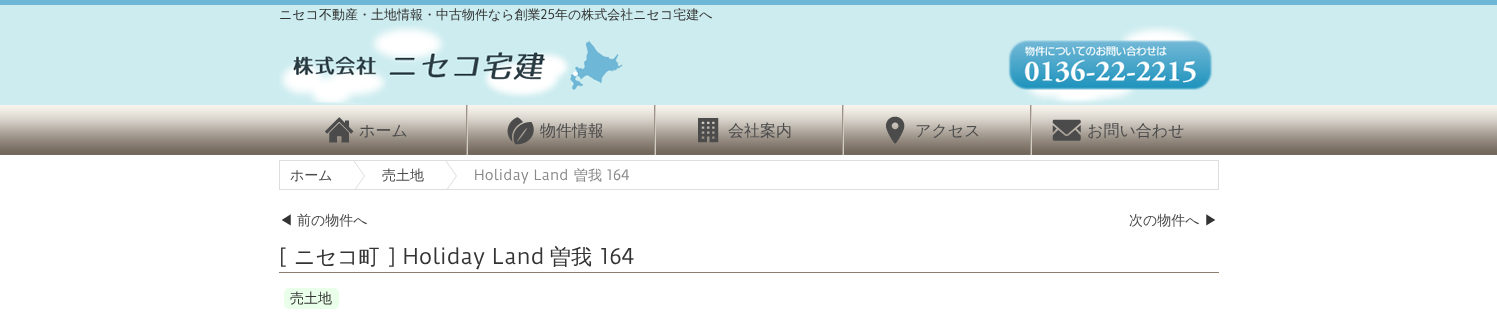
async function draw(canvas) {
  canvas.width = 1497;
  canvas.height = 317;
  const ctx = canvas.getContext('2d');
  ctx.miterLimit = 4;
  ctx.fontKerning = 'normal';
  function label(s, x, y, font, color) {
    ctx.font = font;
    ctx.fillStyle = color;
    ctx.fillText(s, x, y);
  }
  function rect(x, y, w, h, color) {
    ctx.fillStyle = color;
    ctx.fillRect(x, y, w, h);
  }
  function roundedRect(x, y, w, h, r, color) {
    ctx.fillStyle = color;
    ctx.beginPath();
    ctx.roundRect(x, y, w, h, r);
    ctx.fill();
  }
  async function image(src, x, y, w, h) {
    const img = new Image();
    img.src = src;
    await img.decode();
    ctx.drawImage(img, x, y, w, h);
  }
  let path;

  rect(0, 0, 1497, 317, '#fff');
  rect(0, 0, 1497, 5, '#6fb7d6');
  rect(0, 5, 1497, 100, '#ccecef');
  label('ニセコ不動産・土地情報・中古物件なら創業', 279, 19, '500 13px WenQuanYi Zen Hei', '#333');
  label('25', 540, 19, '13px Duru Sans', '#333');
  label('年の株式会社ニセコ宅建へ', 555, 19, '500 13px WenQuanYi Zen Hei', '#333');
  await image('assets/img1.png', 279, 25, 345, 80);
  await image('assets/img2.png', 1008, 25, 205, 80);
  await image('assets/img3.png', 0, 105, 1497, 50);
  rect(466, 105, 1, 50, '#9d9287');
  await image('assets/img4.png', 325, 117, 29, 26);
  label('ホーム', 359, 136, '500 16px WenQuanYi Zen Hei', '#4b4b4b');
  rect(654, 105, 1, 50, '#9d9287');
  rect(467, 105, 1, 50, '#d1ccc3');
  await image('assets/img5.png', 507, 117, 27, 28);
  label('物件情報', 540, 136, '500 16px WenQuanYi Zen Hei', '#4b4b4b');
  rect(842, 105, 1, 50, '#9d9287');
  rect(655, 105, 1, 50, '#d1ccc3');
  await image('assets/img6.png', 698, 118, 21, 25);
  label('会社案内', 728, 136, '500 16px WenQuanYi Zen Hei', '#4b4b4b');
  rect(1030, 105, 1, 50, '#9d9287');
  rect(843, 105, 1, 50, '#d1ccc3');
  await image('assets/img7.png', 886, 116, 19, 28);
  label('アクセス', 915, 136, '500 16px WenQuanYi Zen Hei', '#4b4b4b');
  rect(1031, 105, 1, 50, '#d1ccc3');
  await image('assets/img8.png', 1052, 119, 29, 22);
  label('お問い合わせ', 1087, 136, '500 16px WenQuanYi Zen Hei', '#4b4b4b');
  ctx.strokeStyle = '#dedede';
  ctx.strokeRect(279.5, 160.5, 939, 29);
  ctx.save();
  ctx.beginPath();
  ctx.rect(280, 161, 938, 28);
  ctx.clip();
  ctx.fillStyle = '#dedede';
  path = new Path2D('M353 193V159L365 176Z');
  ctx.fill(path);
  ctx.fillStyle = '#fff';
  path = new Path2D('M352 193V159L364 176Z');
  ctx.fill(path);
  ctx.restore();
  label('ホーム', 290, 180, '500 14px WenQuanYi Zen Hei', '#4b4b4b');
  ctx.save();
  ctx.beginPath();
  ctx.rect(280, 161, 938, 28);
  ctx.clip();
  ctx.fillStyle = '#dedede';
  path = new Path2D('M445 193V159L457 176Z');
  ctx.fill(path);
  ctx.fillStyle = '#fff';
  path = new Path2D('M444 193V159L456 176Z');
  ctx.fill(path);
  ctx.restore();
  label('売土地', 382, 180, '500 14px WenQuanYi Zen Hei', '#4b4b4b');
  label('Holiday Land', 474, 180, '14px Duru Sans', '#888');
  label('曽我', 574, 180, '500 14px WenQuanYi Zen Hei', '#888');
  label('164', 606, 180, '14px Duru Sans', '#888');
  label('◀', 279, 225, '500 14px WenQuanYi Zen Hei', '#333');
  label('前の物件へ', 297, 225, '500 14px WenQuanYi Zen Hei', '#4b4b4b');
  label('次の物件へ', 1129, 225, '500 14px WenQuanYi Zen Hei', '#4b4b4b');
  label('▶', 1204, 225, '500 14px WenQuanYi Zen Hei', '#333');
  rect(279, 272, 940, 1, '#8c7d71');
  label('[', 279, 264, '21px Duru Sans', '#333');
  label('ニセコ町', 294, 264, '500 21px WenQuanYi Zen Hei', '#333');
  label('] Holiday Land', 387, 264, '21px Duru Sans', '#333');
  label('曽我', 550, 264, '500 21px WenQuanYi Zen Hei', '#333');
  label('164', 599, 264, '21px Duru Sans', '#333');
  roundedRect(284, 288, 55, 21, 5, '#eaffea');
  label('売土地', 290, 303, '500 14px WenQuanYi Zen Hei', '#333');
}

draw(document.querySelector('canvas'));
